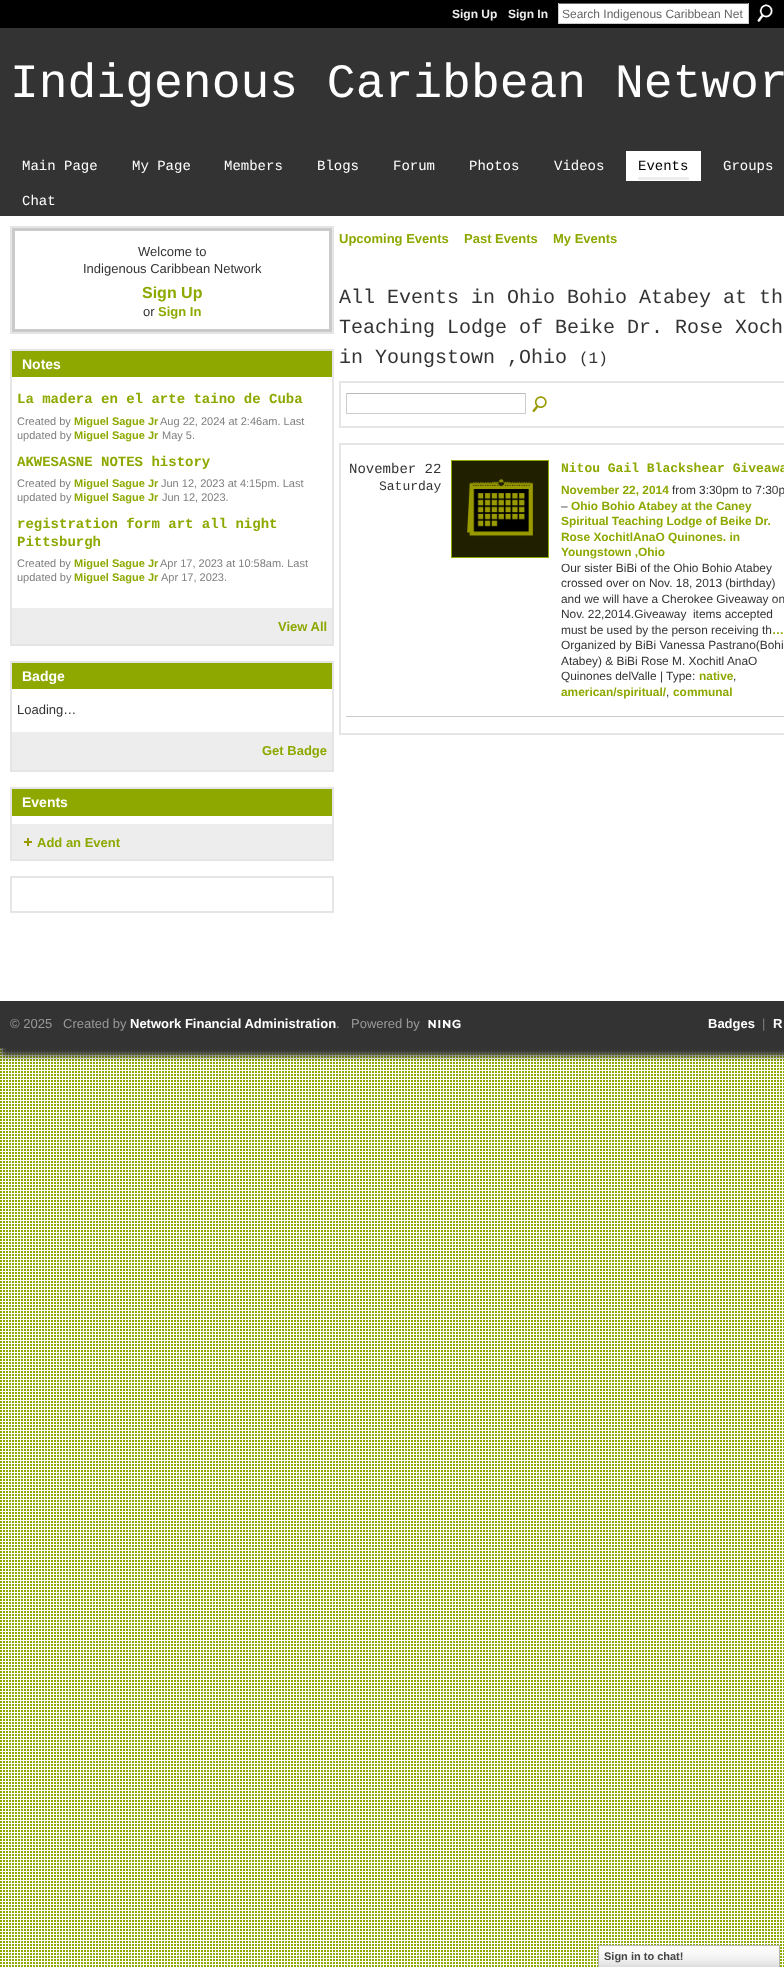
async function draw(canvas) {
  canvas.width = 784;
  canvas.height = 1967;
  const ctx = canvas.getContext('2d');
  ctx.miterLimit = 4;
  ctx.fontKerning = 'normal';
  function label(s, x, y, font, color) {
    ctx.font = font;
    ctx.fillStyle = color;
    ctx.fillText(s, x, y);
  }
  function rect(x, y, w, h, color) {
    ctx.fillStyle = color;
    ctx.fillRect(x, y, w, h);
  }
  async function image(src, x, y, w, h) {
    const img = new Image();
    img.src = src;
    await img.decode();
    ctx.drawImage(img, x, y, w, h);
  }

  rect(0, 0, 784, 1967, '#8ea800');
  await image('assets/img1.png', 0, 1048, 784, 919);
  rect(0, 0, 784, 28, '#000');
  label('Sign Up', 452, 18, 'bold 12px Liberation Sans', '#eee');
  label('Sign In', 508, 18, 'bold 12px Liberation Sans', '#eee');
  rect(559, 4, 189, 19, '#fff');
  rect(558, 3, 191, 1, '#666');
  rect(748, 3, 1, 21, '#ccc');
  rect(558, 23, 191, 1, '#ccc');
  rect(558, 3, 1, 21, '#ccc');
  label('Search Indigenous Caribbean Net', 562, 18, '12px Liberation Sans', '#666');
  await image('assets/img2.png', 757, 4, 16, 18);
  rect(0, 28, 784, 188, '#333');
  label('Indigenous Caribbean Networ', 10, 97, '48px Liberation Mono', '#fff');
  label('Main Page', 22, 170, '14px Liberation Mono', '#fff');
  label('My Page', 132, 170, '14px Liberation Mono', '#fff');
  label('Members', 224, 170, '14px Liberation Mono', '#fff');
  label('Blogs', 317, 170, '14px Liberation Mono', '#fff');
  label('Forum', 393, 170, '14px Liberation Mono', '#fff');
  label('Photos', 469, 170, '14px Liberation Mono', '#fff');
  label('Videos', 554, 170, '14px Liberation Mono', '#fff');
  rect(626, 151, 75, 30, '#fff');
  label('Events', 638, 170, '14px Liberation Mono', '#000');
  rect(638, 177, 51, 3, '#ededed');
  label('Groups', 723, 170, '14px Liberation Mono', '#fff');
  label('Chat', 22, 205, '14px Liberation Mono', '#fff');
  rect(0, 216, 784, 785, '#fff');
  ctx.strokeStyle = '#e5e5e5';
  ctx.lineWidth = 2;
  ctx.strokeRect(11, 227, 322, 106);
  ctx.strokeStyle = '#cbcbcb';
  ctx.lineWidth = 3;
  ctx.strokeRect(13.5, 229.5, 317, 101);
  label('Welcome to', 138, 256, '13px Liberation Sans', '#333');
  label('Indigenous Caribbean Network', 83, 273, '13px Liberation Sans', '#333');
  label('Sign Up', 142, 298, 'bold 16px Liberation Sans', '#8ea800');
  label('or', 143, 316, '13px Liberation Sans', '#333');
  label('Sign In', 158, 316, 'bold 13px Liberation Sans', '#8ea800');
  ctx.strokeStyle = '#e5e5e5';
  ctx.lineWidth = 2;
  ctx.strokeRect(11, 350, 322, 295);
  rect(12, 351, 320, 26, '#8ea800');
  label('Notes', 22, 369, 'bold 14px Liberation Sans', '#fff');
  label('La madera en el arte taino de Cuba', 17, 403, 'bold 14px Liberation Mono', '#8ea800');
  label('Created by', 17, 425, '11px Liberation Sans', '#7f7f7f');
  label('Miguel Sague Jr', 74, 425, 'bold 11px Liberation Sans', '#8ea800');
  label('Aug 22, 2024 at 2:46am. Last', 160, 425, '11px Liberation Sans', '#7f7f7f');
  label('updated by', 17, 439, '11px Liberation Sans', '#7f7f7f');
  label('Miguel Sague Jr', 74, 439, 'bold 11px Liberation Sans', '#8ea800');
  label('May 5.', 162, 439, '11px Liberation Sans', '#7f7f7f');
  label('AKWESASNE NOTES history', 17, 466, 'bold 14px Liberation Mono', '#8ea800');
  label('Created by', 17, 487, '11px Liberation Sans', '#7f7f7f');
  label('Miguel Sague Jr', 74, 487, 'bold 11px Liberation Sans', '#8ea800');
  label('Jun 12, 2023 at 4:15pm. Last', 161, 487, '11px Liberation Sans', '#7f7f7f');
  label('updated by', 17, 501, '11px Liberation Sans', '#7f7f7f');
  label('Miguel Sague Jr', 74, 501, 'bold 11px Liberation Sans', '#8ea800');
  label('Jun 12, 2023.', 162, 501, '11px Liberation Sans', '#7f7f7f');
  label('registration form art all night', 17, 528, 'bold 14px Liberation Mono', '#8ea800');
  label('Pittsburgh', 17, 546, 'bold 14px Liberation Mono', '#8ea800');
  label('Created by', 17, 567, '11px Liberation Sans', '#7f7f7f');
  label('Miguel Sague Jr', 74, 567, 'bold 11px Liberation Sans', '#8ea800');
  label('Apr 17, 2023 at 10:58am. Last', 160, 567, '11px Liberation Sans', '#7f7f7f');
  label('updated by', 17, 581, '11px Liberation Sans', '#7f7f7f');
  label('Miguel Sague Jr', 74, 581, 'bold 11px Liberation Sans', '#8ea800');
  label('Apr 17, 2023.', 161, 581, '11px Liberation Sans', '#7f7f7f');
  rect(12, 608, 320, 36, '#ededed');
  label('View All', 278, 631, 'bold 13px Liberation Sans', '#8ea800');
  ctx.strokeRect(11, 662, 322, 109);
  rect(12, 663, 320, 26, '#8ea800');
  label('Badge', 22, 681, 'bold 14px Liberation Sans', '#fff');
  label('Loading…', 17, 714, '13px Liberation Sans', '#333');
  rect(12, 732, 320, 38, '#ededed');
  label('Get Badge', 262, 755, 'bold 13px Liberation Sans', '#8ea800');
  ctx.strokeRect(11, 788, 322, 72);
  rect(12, 789, 320, 27, '#8ea800');
  label('Events', 22, 807, 'bold 14px Liberation Sans', '#fff');
  rect(12, 824, 320, 35, '#ededed');
  await image('assets/img3.png', 24, 838, 8, 8);
  label('Add an Event', 37, 847, 'bold 13px Liberation Sans', '#8ea800');
  ctx.strokeRect(11, 877, 322, 35);
  label('Upcoming Events', 339, 243, 'bold 13px Liberation Sans', '#8ea800');
  label('Past Events', 464, 243, 'bold 13px Liberation Sans', '#8ea800');
  label('My Events', 553, 243, 'bold 13px Liberation Sans', '#8ea800');
  label('All Events in Ohio Bohio Atabey at th', 339, 303, '20px Liberation Mono', '#333');
  label('Teaching Lodge of Beike Dr. Rose Xoch', 339, 333, '20px Liberation Mono', '#333');
  label('in Youngstown ,Ohio', 339, 363, '20px Liberation Mono', '#333');
  label('(1)', 579, 363, '16px Liberation Mono', '#333');
  ctx.strokeRect(340, 382, 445, 45);
  rect(346, 393, 180, 1, '#bbb');
  rect(525, 393, 1, 21, '#ccc');
  rect(346, 413, 180, 1, '#ccc');
  rect(346, 393, 1, 21, '#ccc');
  await image('assets/img4.png', 532, 396, 15, 16);
  ctx.strokeRect(340, 444, 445, 290);
  rect(346, 716, 438, 1, '#cbcbcb');
  label('November 22', 349, 473, '14px Liberation Mono', '#333');
  label('Saturday', 379, 490, '13px Liberation Mono', '#333');
  await image('assets/img5.png', 452, 461, 96, 96);
  ctx.strokeStyle = '#8ea800';
  ctx.lineWidth = 1;
  ctx.strokeRect(451.5, 460.5, 97, 97);
  label('Nitou Gail Blackshear Giveawa', 561, 472, 'bold 13px Liberation Mono', '#8ea800');
  label('November 22, 2014', 561, 494, 'bold 11.9px Liberation Sans', '#8ea800');
  label('from 3:30pm to 7:30p', 672, 494, '11.9px Liberation Sans', '#333');
  label('–', 561, 510, '11.9px Liberation Sans', '#333');
  label('Ohio Bohio Atabey at the Caney', 571, 510, 'bold 11.9px Liberation Sans', '#8ea800');
  label('Spiritual Teaching Lodge of Beike Dr.', 561, 525, 'bold 11.9px Liberation Sans', '#8ea800');
  label('Rose XochitlAnaO Quinones. in', 561, 541, 'bold 11.9px Liberation Sans', '#8ea800');
  label('Youngstown ,Ohio', 561, 556, 'bold 11.9px Liberation Sans', '#8ea800');
  label('Our sister BiBi of the Ohio Bohio Atabey', 561, 572, '11.9px Liberation Sans', '#333');
  label('crossed over on Nov. 18, 2013 (birthday)', 561, 587, '11.9px Liberation Sans', '#333');
  label('and we will have a Cherokee Giveaway on', 561, 603, '11.9px Liberation Sans', '#333');
  label('Nov. 22,2014.Giveaway  items accepted', 561, 618, '11.9px Liberation Sans', '#333');
  label('must be used by the person receiving th', 561, 634, '11.9px Liberation Sans', '#333');
  label('…', 772, 634, 'bold 11.9px Liberation Sans', '#8ea800');
  label('Organized by BiBi Vanessa Pastrano(Bohi', 561, 649, '11.9px Liberation Sans', '#333');
  label('Atabey) & BiBi Rose M. Xochitl AnaO', 561, 665, '11.9px Liberation Sans', '#333');
  label('Quinones delValle | Type:', 561, 680, '11.9px Liberation Sans', '#333');
  label('native', 699, 680, 'bold 11.9px Liberation Sans', '#8ea800');
  label(',', 733, 680, '11.9px Liberation Sans', '#333');
  label('american/spiritual/', 561, 696, 'bold 11.9px Liberation Sans', '#8ea800');
  label(',', 666, 696, '11.9px Liberation Sans', '#333');
  label('communal', 673, 696, 'bold 11.9px Liberation Sans', '#8ea800');
  ctx.fillStyle = '#333';
  ctx.filter = 'blur(3px)';
  ctx.beginPath();
  ctx.rect(0, 1009, 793, 47);
  ctx.fill();
  ctx.filter = 'none';
  rect(0, 1001, 784, 47, '#333');
  label('© 2025', 10, 1028, '13px Liberation Sans', '#999');
  label('Created by', 63, 1028, '13px Liberation Sans', '#999');
  label('Network Financial Administration', 130, 1028, 'bold 13px Liberation Sans', '#fff');
  label('.', 336, 1028, '13px Liberation Sans', '#999');
  label('Powered by', 351, 1028, '13px Liberation Sans', '#999');
  await image('assets/img6.png', 428, 1019, 33, 10);
  label('Badges', 708, 1028, 'bold 13px Liberation Sans', '#fff');
  label('|', 762, 1028, '13px Liberation Sans', '#7f7f7f');
  label('R', 773, 1028, 'bold 13px Liberation Sans', '#fff');
  await image('assets/img7.png', 599, 1947, 180, 20);
  ctx.strokeStyle = '#b7b7b7';
  ctx.strokeRect(598.5, 1945.5, 181, 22);
  label('Sign in to chat!', 604, 1960, 'bold 11px Liberation Sans', '#454545');
}

draw(document.querySelector('canvas'));
